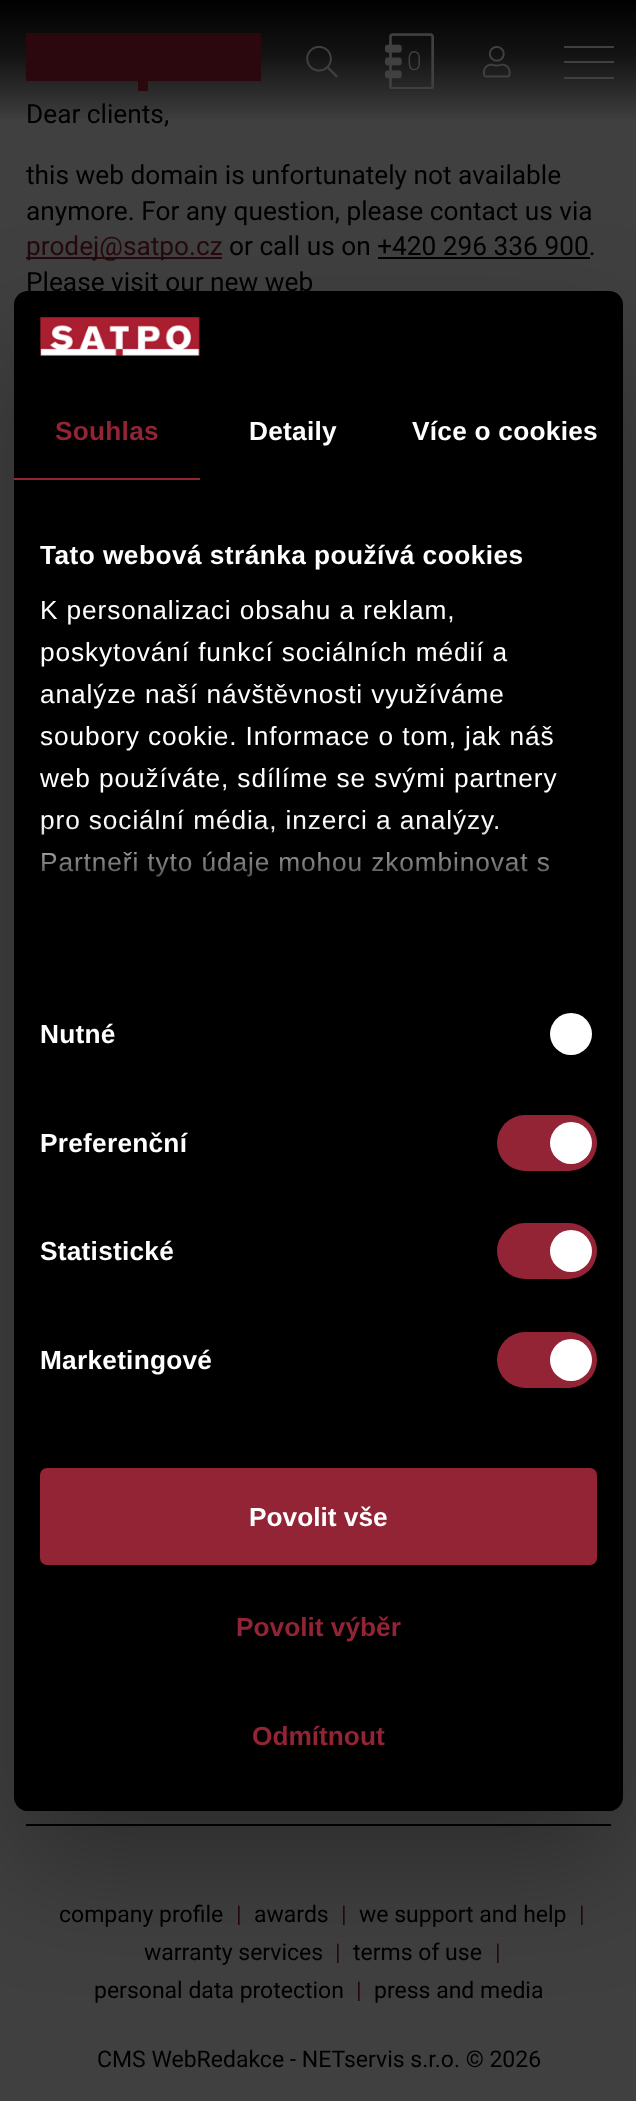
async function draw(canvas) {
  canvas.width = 636;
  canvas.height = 2101;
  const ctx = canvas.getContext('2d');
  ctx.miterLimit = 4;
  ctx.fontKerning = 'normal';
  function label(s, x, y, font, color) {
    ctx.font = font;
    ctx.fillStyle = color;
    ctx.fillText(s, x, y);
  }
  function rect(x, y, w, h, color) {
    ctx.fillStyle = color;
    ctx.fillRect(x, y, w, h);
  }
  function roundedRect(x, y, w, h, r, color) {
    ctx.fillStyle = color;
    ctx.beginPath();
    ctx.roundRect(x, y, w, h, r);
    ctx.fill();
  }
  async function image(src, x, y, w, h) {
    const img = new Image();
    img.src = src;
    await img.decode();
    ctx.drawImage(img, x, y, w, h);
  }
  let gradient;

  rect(0, 0, 636, 2101, '#404040');
  label('Dear clients,', 26, 123, '26.25px Roboto', '#000');
  gradient = ctx.createLinearGradient(319, 0, 319, 123);
  gradient.addColorStop(0, '#000');
  gradient.addColorStop(0.45, '#000000b3');
  gradient.addColorStop(1, '#00000000');
  ctx.fillStyle = gradient;
  ctx.fillRect(0, 0, 636, 119);
  rect(26, 33, 235, 48, '#2b080d');
  rect(138, 81, 10, 10, '#2b080d');
  await image('assets/img1.png', 306, 45, 32, 33);
  await image('assets/img2.png', 385, 33, 49, 56);
  label('0', 407, 70, '300 26.25px Roboto', '#404040');
  await image('assets/img3.png', 483, 45, 28, 33);
  rect(564, 46, 50, 2, '#404040');
  rect(564, 61, 50, 2, '#404040');
  rect(564, 77, 50, 2, '#404040');
  label('this web domain is unfortunately not available', 26, 184, '26.25px Roboto', '#000');
  label('anymore. For any question, please contact us via', 26, 220, '26.25px Roboto', '#000');
  rect(26, 257, 196, 2, '#25090d');
  label('prodej@satpo.cz', 26, 255, '26.25px Roboto', '#25090d');
  label('or call us on +420 296 336 900.', 229, 255, '26.25px Roboto', '#000');
  rect(378, 257, 212, 2, '#000');
  label('Please visit our new web', 26, 291, '26.25px Roboto', '#000');
  rect(26, 1824, 585, 2, '#000');
  label('company profile', 59, 1922, '23px Roboto', '#000');
  label('|', 236, 1922, '23px Roboto', '#25090d');
  label('awards', 254, 1922, '23px Roboto', '#000');
  label('|', 341, 1922, '23px Roboto', '#25090d');
  label('we support and help', 359, 1922, '23px Roboto', '#000');
  label('|', 579, 1922, '23px Roboto', '#25090d');
  label('warranty services', 144, 1960, '23px Roboto', '#000');
  label('|', 335, 1960, '23px Roboto', '#25090d');
  label('terms of use', 353, 1960, '23px Roboto', '#000');
  label('|', 495, 1960, '23px Roboto', '#25090d');
  label('personal data protection', 94, 1998, '23px Roboto', '#000');
  label('|', 356, 1998, '23px Roboto', '#25090d');
  label('press and media', 374, 1998, '23px Roboto', '#000');
  label('CMS WebRedakce - NETservis s.r.o. © 2026', 97, 2067, '23px Roboto', '#000');
  ctx.fillStyle = '#0000004d';
  ctx.filter = 'blur(59.5px)';
  ctx.beginPath();
  ctx.roundRect(14, 347, 609, 1520, 14);
  ctx.fill();
  ctx.filter = 'none';
  roundedRect(14, 291, 609, 1520, 14, '#000');
  await image('assets/img4.png', 40, 317, 160, 39);
  rect(14, 478, 186, 2, '#922435');
  ctx.letterSpacing = '0.25px';
  label('Souhlas', 55, 440, 'bold 26.25px Liberation Sans', '#922435');
  label('Detaily', 249, 440, 'bold 26.25px Liberation Sans', '#fff');
  label('Více o cookies', 412, 440, 'bold 26.25px Liberation Sans', '#fff');
  ctx.letterSpacing = '0.45px';
  label('Tato webová stránka používá cookies', 40, 564, 'bold 26.25px Liberation Sans', '#fff');
  ctx.letterSpacing = '0.9px';
  label('K personalizaci obsahu a reklam,', 40, 619, '26.25px Liberation Sans', '#fff');
  label('poskytování funkcí sociálních médií a', 40, 661, '26.25px Liberation Sans', '#fff');
  label('analýze naší návštěvnosti využíváme', 40, 703, '26.25px Liberation Sans', '#fff');
  label('soubory cookie. Informace o tom, jak náš', 40, 745, '26.25px Liberation Sans', '#fff');
  label('web používáte, sdílíme se svými partnery', 40, 787, '26.25px Liberation Sans', '#fff');
  label('pro sociální média, inzerci a analýzy.', 40, 829, '26.25px Liberation Sans', '#fff');
  label('Partneři tyto údaje mohou zkombinovat s', 40, 871, '26.25px Liberation Sans', '#fff');
  gradient = ctx.createLinearGradient(307, 952, 307, 821);
  gradient.addColorStop(0, '#000');
  gradient.addColorStop(0.5, '#000000cc');
  gradient.addColorStop(1, '#00000000');
  ctx.fillStyle = gradient;
  ctx.fillRect(42, 823, 507, 54);
  ctx.letterSpacing = '0.25px';
  label('Nutné', 40, 1043, 'bold 26.25px Liberation Sans', '#fff');
  ctx.beginPath();
  ctx.arc(571, 1034, 21, 0, 2 * Math.PI);
  ctx.fill();
  label('Preferenční', 40, 1152, 'bold 26.25px Liberation Sans', '#fff');
  roundedRect(497, 1115, 100, 56, 28, '#922435');
  ctx.fillStyle = '#fff';
  ctx.beginPath();
  ctx.arc(571, 1143, 21, 0, 2 * Math.PI);
  ctx.fill();
  label('Statistické', 40, 1260, 'bold 26.25px Liberation Sans', '#fff');
  roundedRect(497, 1223, 100, 56, 28, '#922435');
  ctx.fillStyle = '#fff';
  ctx.beginPath();
  ctx.arc(571, 1251, 21, 0, 2 * Math.PI);
  ctx.fill();
  label('Marketingové', 40, 1369, 'bold 26.25px Liberation Sans', '#fff');
  roundedRect(497, 1332, 100, 56, 28, '#922435');
  ctx.fillStyle = '#fff';
  ctx.beginPath();
  ctx.arc(571, 1360, 21, 0, 2 * Math.PI);
  ctx.fill();
  ctx.save();
  ctx.beginPath();
  ctx.roundRect(14, 291, 609, 1520, 14);
  ctx.clip();
  rect(23, 1810, 591, 1, '#000');
  ctx.restore();
  ctx.fillStyle = '#922435';
  ctx.beginPath();
  ctx.roundRect(42, 1470, 553, 93, 5);
  ctx.fill();
  ctx.strokeStyle = '#922435';
  ctx.lineWidth = 4;
  ctx.stroke();
  ctx.letterSpacing = '0px';
  label('Povolit vše', 249, 1526, 'bold 26.25px Liberation Sans', '#fff');
  label('Povolit výběr', 236, 1636, 'bold 26.25px Liberation Sans', '#922435');
  label('Odmítnout', 252, 1745, 'bold 26.25px Liberation Sans', '#922435');
}

draw(document.querySelector('canvas'));
